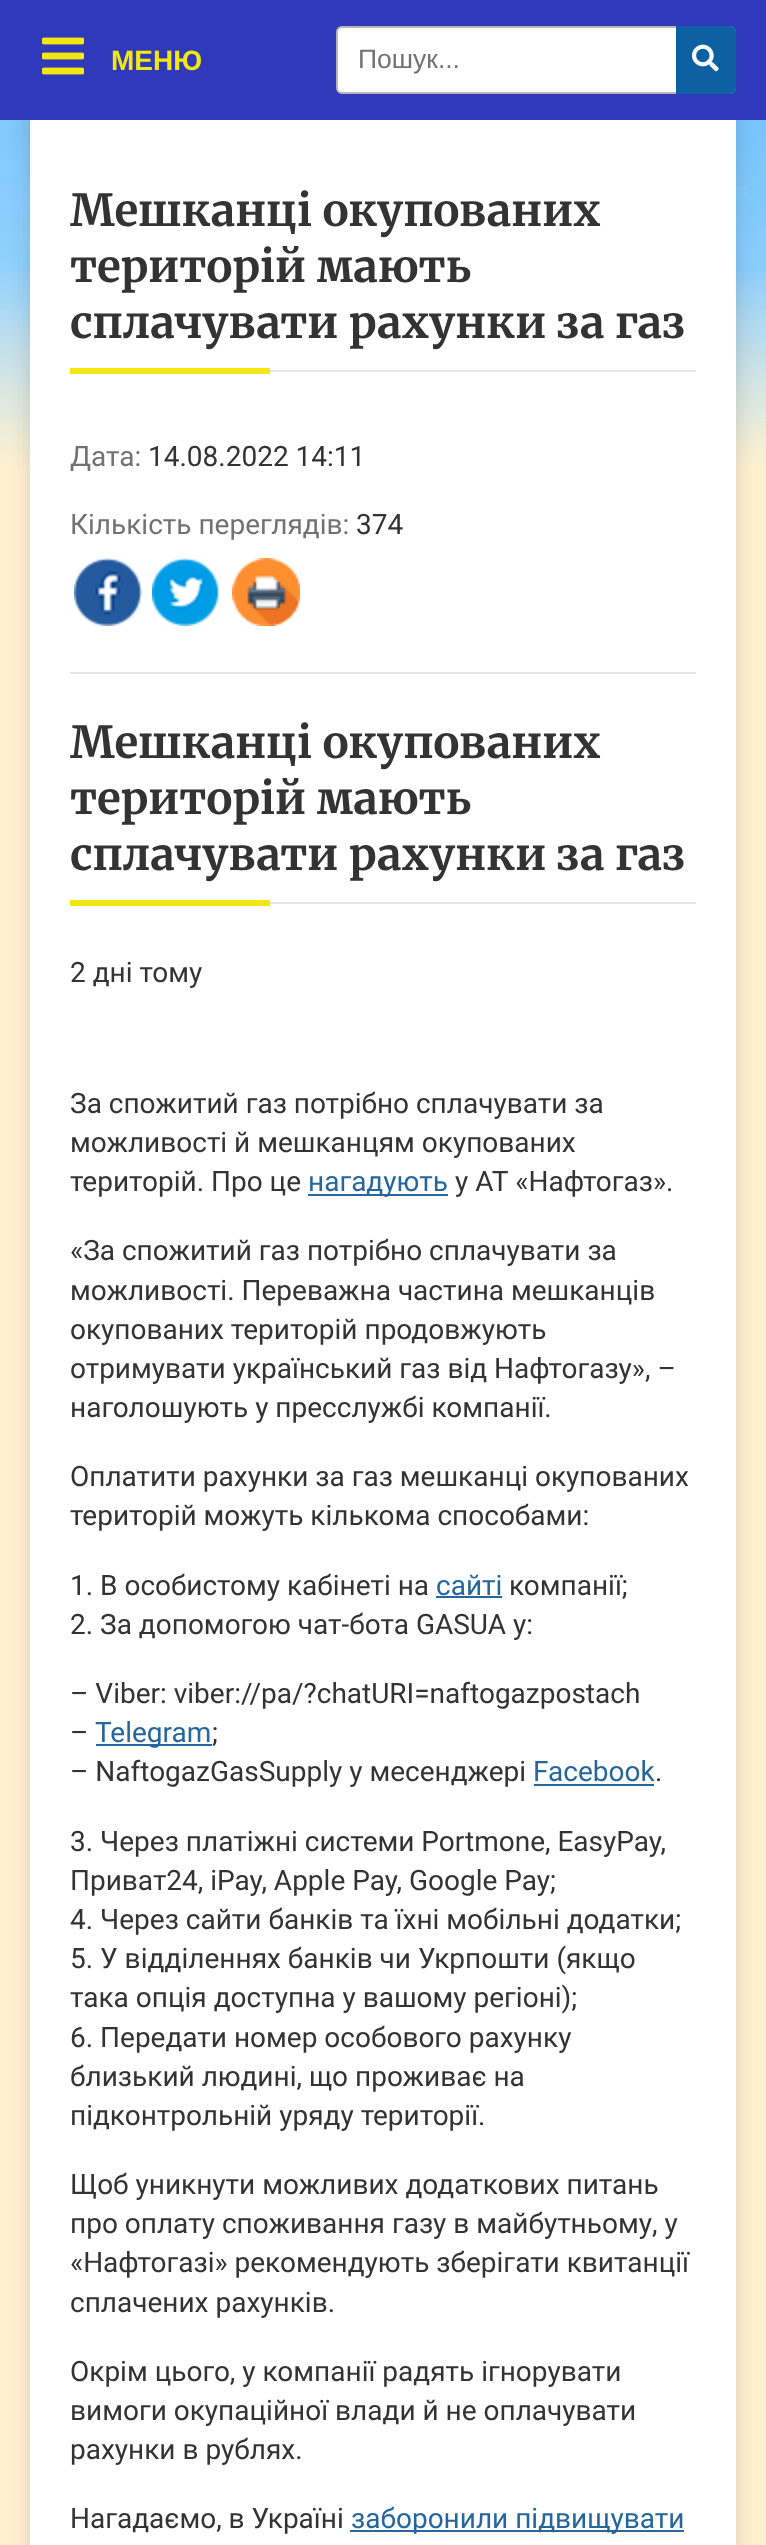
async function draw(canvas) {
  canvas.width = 766;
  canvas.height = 2545;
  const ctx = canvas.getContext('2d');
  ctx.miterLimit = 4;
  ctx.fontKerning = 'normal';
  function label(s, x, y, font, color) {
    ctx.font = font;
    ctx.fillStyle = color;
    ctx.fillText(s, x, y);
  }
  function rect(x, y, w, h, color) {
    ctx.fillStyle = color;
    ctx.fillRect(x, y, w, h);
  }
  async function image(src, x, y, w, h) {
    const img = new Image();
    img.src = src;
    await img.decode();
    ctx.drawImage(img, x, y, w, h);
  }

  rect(0, 0, 766, 2545, '#fff');
  await image('assets/img1.png', 0, 120, 766, 2264);
  await image('assets/img7.png', 0, 2384, 766, 161);
  ctx.fillStyle = '#00000026';
  ctx.filter = 'blur(10px)';
  ctx.beginPath();
  ctx.roundRect(30, 24, 706, 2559, 8);
  ctx.fill();
  ctx.filter = 'none';
  rect(0, 0, 766, 120, '#3039ba');
  ctx.fillStyle = '#fff';
  ctx.beginPath();
  ctx.roundRect(337, 27, 398, 66, 5);
  ctx.fill();
  ctx.strokeStyle = '#b7b7b7';
  ctx.lineWidth = 2;
  ctx.stroke();
  label('Пошук...', 358, 68, '26.5px Liberation Sans', '#727272');
  ctx.fillStyle = '#0d61a2';
  ctx.beginPath();
  ctx.roundRect(676, 26, 60, 68, [0, 6, 6, 0]);
  ctx.fill();
  await image('assets/img2.png', 692, 44, 27, 28);
  rect(30, 120, 706, 2425, '#fff');
  await image('assets/img3.png', 42, 37, 42, 38);
  label('МЕНЮ', 111, 70, 'bold 28px Liberation Sans', '#f2e713');
  rect(270, 370, 426, 2, '#e5e5e5');
  label('Мешканці окупованих', 70, 226, '300 44px Merriweather', '#333');
  label('територій мають', 70, 282, '300 44px Merriweather', '#333');
  label('сплачувати рахунки за газ', 70, 338, '300 44px Merriweather', '#333');
  rect(70, 368, 200, 6, '#f2e713');
  label('Дата:', 70, 466, '28px Roboto', '#727272');
  label('14.08.2022 14:11', 148, 466, '28px Roboto', '#333');
  label('Кількість переглядів:', 70, 534, '28px Roboto', '#727272');
  label('374', 356, 534, '28px Roboto', '#333');
  await image('assets/img4.png', 74, 558, 68, 68);
  await image('assets/img5.png', 152, 558, 67, 68);
  await image('assets/img6.png', 232, 558, 68, 68);
  rect(70, 672, 626, 2, '#e5e5e5');
  rect(270, 902, 426, 2, '#e5e5e5');
  label('Мешканці окупованих', 70, 758, '300 44px Merriweather', '#333');
  label('територій мають', 70, 814, '300 44px Merriweather', '#333');
  label('сплачувати рахунки за газ', 70, 870, '300 44px Merriweather', '#333');
  rect(70, 900, 200, 6, '#f2e713');
  label('2 дні тому', 70, 982, '28px Roboto', '#333');
  label('За спожитий газ потрібно сплачувати за', 70, 1113, '28px Roboto', '#333');
  label('можливості й мешканцям окупованих', 70, 1152, '28px Roboto', '#333');
  label('територій. Про це', 70, 1191, '28px Roboto', '#333');
  rect(308, 1194, 140, 2, '#25669c');
  label('нагадують', 308, 1191, '28px Roboto', '#25669c');
  label('у АТ «Нафтогаз».', 455, 1191, '28px Roboto', '#333');
  label('«За спожитий газ потрібно сплачувати за', 70, 1260, '28px Roboto', '#333');
  label('можливості. Переважна частина мешканців', 70, 1300, '28px Roboto', '#333');
  label('окупованих територій продовжують', 70, 1339, '28px Roboto', '#333');
  label('отримувати український газ від Нафтогазу», –', 70, 1378, '28px Roboto', '#333');
  label('наголошують у пресслужбі компанії.', 70, 1417, '28px Roboto', '#333');
  label('Оплатити рахунки за газ мешканці окупованих', 70, 1486, '28px Roboto', '#333');
  label('територій можуть кількома способами:', 70, 1525, '28px Roboto', '#333');
  label('1. В особистому кабінеті на', 70, 1595, '28px Roboto', '#333');
  label('сайті', 436, 1595, '28px Roboto', '#25669c');
  rect(436, 1596, 66, 2, '#25669c');
  label('компанії;', 509, 1595, '28px Roboto', '#333');
  label('2. За допомогою чат-бота GASUA у:', 70, 1634, '28px Roboto', '#333');
  label('– Viber: viber://pa/?chatURI=naftogazpostach', 70, 1703, '28px Roboto', '#333');
  label('–', 70, 1742, '28px Roboto', '#333');
  rect(96, 1744, 116, 2, '#25669c');
  label('Telegram', 95, 1742, '28px Roboto', '#25669c');
  label(';', 212, 1742, '28px Roboto', '#333');
  label('– NaftogazGasSupply у месенджері', 70, 1781, '28px Roboto', '#333');
  label('Facebook', 533, 1781, '28px Roboto', '#25669c');
  rect(534, 1784, 120, 2, '#25669c');
  label('.', 655, 1781, '28px Roboto', '#333');
  label('3. Через платіжні системи Portmone, EasyPay,', 70, 1851, '28px Roboto', '#333');
  label('Приват24, iPay, Apple Pay, Google Pay;', 70, 1890, '28px Roboto', '#333');
  label('4. Через сайти банків та їхні мобільні додатки;', 70, 1929, '28px Roboto', '#333');
  label('5. У відділеннях банків чи Укрпошти (якщо', 70, 1968, '28px Roboto', '#333');
  label('така опція доступна у вашому регіоні);', 70, 2007, '28px Roboto', '#333');
  label('6. Передати номер особового рахунку', 70, 2047, '28px Roboto', '#333');
  label('близький людині, що проживає на', 70, 2086, '28px Roboto', '#333');
  label('підконтрольній уряду території.', 70, 2125, '28px Roboto', '#333');
  label('Щоб уникнути можливих додаткових питань', 70, 2194, '28px Roboto', '#333');
  label('про оплату споживання газу в майбутньому, у', 70, 2233, '28px Roboto', '#333');
  label('«Нафтогазі» рекомендують зберігати квитанції', 70, 2272, '28px Roboto', '#333');
  label('сплачених рахунків.', 70, 2312, '28px Roboto', '#333');
  label('Окрім цього, у компанії радять ігнорувати', 70, 2381, '28px Roboto', '#333');
  label('вимоги окупаційної влади й не оплачувати', 70, 2420, '28px Roboto', '#333');
  label('рахунки в рублях.', 70, 2459, '28px Roboto', '#333');
  label('Нагадаємо, в Україні', 70, 2528, '28px Roboto', '#333');
  rect(350, 2530, 334, 2, '#25669c');
  label('заборонили підвищувати', 351, 2528, '28px Roboto', '#25669c');
}

draw(document.querySelector('canvas'));
